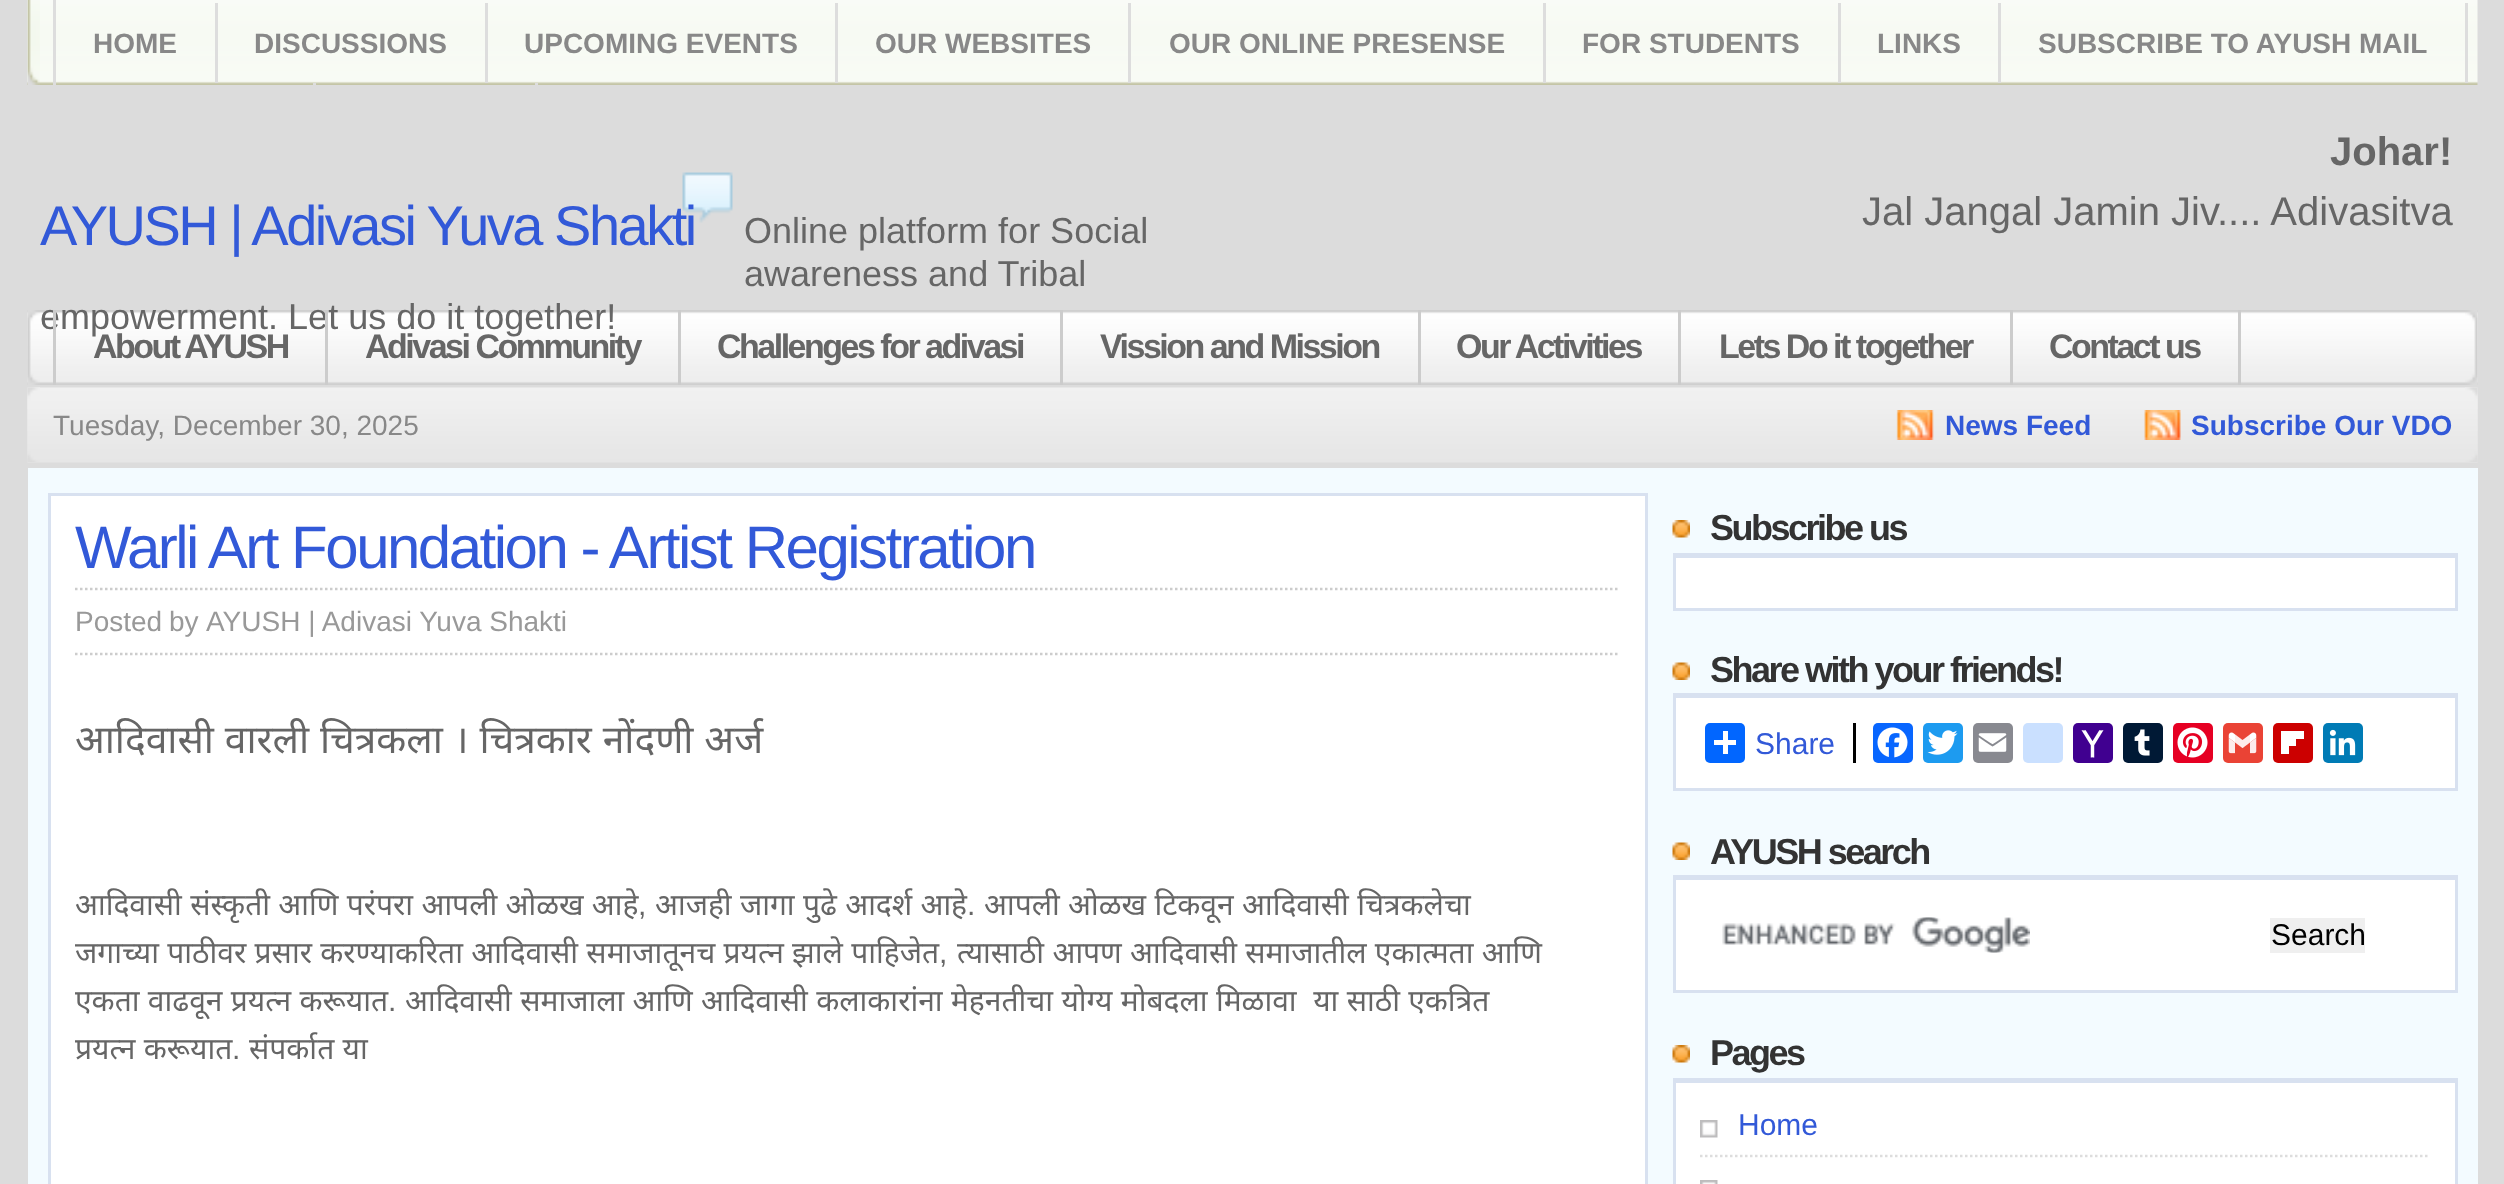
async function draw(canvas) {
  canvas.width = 2504;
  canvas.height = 1184;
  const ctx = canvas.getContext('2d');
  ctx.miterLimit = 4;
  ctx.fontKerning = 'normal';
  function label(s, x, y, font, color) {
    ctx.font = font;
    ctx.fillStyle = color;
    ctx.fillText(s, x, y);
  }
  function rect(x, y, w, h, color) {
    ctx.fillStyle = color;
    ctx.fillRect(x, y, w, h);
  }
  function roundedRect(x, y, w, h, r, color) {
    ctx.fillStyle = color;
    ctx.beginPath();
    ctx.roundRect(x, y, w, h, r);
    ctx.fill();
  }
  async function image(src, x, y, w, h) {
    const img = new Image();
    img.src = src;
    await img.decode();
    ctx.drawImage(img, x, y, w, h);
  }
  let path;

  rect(0, 0, 2504, 1184, '#dcdcdc');
  await image('assets/img1.png', 27, 0, 2451, 85);
  await image('assets/img2.png', 27, 0, 13, 85);
  rect(53, 0, 3, 85, '#ddd');
  rect(215, 3, 3, 80, '#ddd');
  label('HOME', 93, 53, 'bold 28px Liberation Sans', '#888');
  rect(485, 3, 3, 80, '#ddd');
  label('DISCUSSIONS', 254, 53, 'bold 28px Liberation Sans', '#888');
  rect(835, 3, 3, 80, '#ddd');
  label('UPCOMING EVENTS', 524, 53, 'bold 28px Liberation Sans', '#888');
  rect(1128, 3, 3, 80, '#ddd');
  label('OUR WEBSITES', 875, 53, 'bold 28px Liberation Sans', '#888');
  rect(1543, 3, 3, 80, '#ddd');
  label('OUR ONLINE PRESENSE', 1169, 53, 'bold 28px Liberation Sans', '#888');
  rect(1838, 3, 3, 80, '#ddd');
  label('FOR STUDENTS', 1582, 53, 'bold 28px Liberation Sans', '#888');
  rect(1998, 3, 3, 80, '#ddd');
  label('LINKS', 1877, 53, 'bold 28px Liberation Sans', '#888');
  rect(2465, 3, 3, 80, '#ddd');
  label('SUBSCRIBE TO AYUSH MAIL', 2038, 53, 'bold 28px Liberation Sans', '#888');
  rect(313, 83, 3, 2, '#ddd');
  rect(535, 83, 3, 2, '#ddd');
  label('Johar!', 2330, 165, 'bold 40px Liberation Sans', '#666');
  label('Jal Jangal Jamin Jiv.... Adivasitva', 1862, 225, '40px Liberation Sans', '#666');
  await image('assets/img3.png', 682, 172, 51, 51);
  ctx.letterSpacing = '-2.5px';
  label('AYUSH | Adivasi Yuva Shakti', 40, 245, '56px Liberation Sans', '#3259d8');
  ctx.letterSpacing = '0px';
  label('Online platform for Social', 744, 243, '36px Liberation Sans', '#666');
  label('awareness and Tribal', 744, 286, '36px Liberation Sans', '#666');
  await image('assets/img4.png', 27, 310, 2451, 75);
  label('empowerment. Let us do it together!', 40, 329, '36px Liberation Sans', '#666');
  await image('assets/img5.png', 27, 310, 13, 75);
  rect(53, 310, 3, 75, '#ccc');
  rect(325, 310, 3, 75, '#ccc');
  ctx.letterSpacing = '-2.5px';
  label('About AYUSH', 93, 358, 'bold 34px Liberation Sans', '#666');
  rect(678, 310, 3, 75, '#ccc');
  label('Adivasi Community', 365, 358, 'bold 34px Liberation Sans', '#666');
  rect(1060, 310, 3, 75, '#ccc');
  label('Challenges for adivasi', 717, 358, 'bold 34px Liberation Sans', '#666');
  rect(1418, 310, 3, 75, '#ccc');
  label('Vission and Mission', 1100, 358, 'bold 34px Liberation Sans', '#666');
  rect(1678, 310, 3, 75, '#ccc');
  label('Our Activities', 1456, 358, 'bold 34px Liberation Sans', '#666');
  rect(2010, 310, 3, 75, '#ccc');
  label('Lets Do it together', 1719, 358, 'bold 34px Liberation Sans', '#666');
  rect(2238, 310, 3, 75, '#ccc');
  label('Contact us', 2049, 358, 'bold 34px Liberation Sans', '#666');
  await image('assets/img6.png', 2465, 310, 13, 75);
  await image('assets/img7.png', 27, 387, 2451, 76);
  await image('assets/img8.png', 27, 387, 13, 75);
  ctx.letterSpacing = '0px';
  label('Tuesday, December 30, 2025', 53, 435, '28px Liberation Sans', '#888');
  await image('assets/img9.png', 2465, 387, 13, 75);
  await image('assets/img10.png', 1896, 410, 38, 30);
  label('News Feed', 1945, 435, 'bold 28px Liberation Sans', '#3259d8');
  await image('assets/img11.png', 2144, 410, 37, 30);
  label('Subscribe Our VDO', 2191, 435, 'bold 28px Liberation Sans', '#3259d8');
  rect(28, 468, 2450, 716, '#f3fbff');
  ctx.fillStyle = '#fff';
  ctx.beginPath();
  ctx.rect(49.5, 494.5, 1597, 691);
  ctx.fill();
  ctx.strokeStyle = '#d8e1f0';
  ctx.lineWidth = 3;
  ctx.stroke();
  ctx.letterSpacing = '-2.5px';
  label('Warli Art Foundation - Artist Registration', 75, 568, '60px Liberation Sans', '#3259d8');
  path = new Path2D('M75 589H1620');
  ctx.strokeStyle = '#ccc';
  ctx.lineWidth = 2.5;
  ctx.setLineDash([2.5, 2.5]);
  ctx.stroke(path);
  path = new Path2D('M75 654H1620');
  ctx.stroke(path);
  ctx.letterSpacing = '0px';
  ctx.wordSpacing = '-1px';
  label('Posted by', 75, 631, '28px Liberation Sans', '#999');
  ctx.wordSpacing = '0px';
  label('AYUSH | Adivasi Yuva Shakti', 206, 631, '28px Liberation Sans', '#999');
  ctx.wordSpacing = '0.75px';
  label('आदिवासी वारली चित्रकला । चित्रकार नोंदणी अर्ज', 75, 753, '39px Noto Sans', '#666');
  ctx.wordSpacing = '0.5px';
  label('आदिवासी संस्कृती आणि परंपरा आपली ओळख आहे', 75, 915, '30px Noto Sans', '#666');
  ctx.wordSpacing = '0px';
  label(',', 638, 915, '30px Liberation Sans', '#666');
  ctx.wordSpacing = '0.5px';
  label('आजही जागा पुढे आदर्श आहे', 655, 915, '30px Noto Sans', '#666');
  ctx.wordSpacing = '0px';
  label('.', 967, 915, '30px Liberation Sans', '#666');
  ctx.wordSpacing = '0.5px';
  label('आपली ओळख टिकवून आदिवासी चित्रकलेचा', 984, 915, '30px Noto Sans', '#666');
  label('जगाच्या पाठीवर प्रसार करण्याकरिता आदिवासी समाजातूनच प्रयत्न झाले पाहिजेत', 75, 963, '30px Noto Sans', '#666');
  ctx.wordSpacing = '0px';
  label(',', 939, 963, '30px Liberation Sans', '#666');
  ctx.wordSpacing = '0.5px';
  label('त्यासाठी आपण आदिवासी समाजातील एकात्मता आणि', 957, 963, '30px Noto Sans', '#666');
  label('एकता वाढवून प्रयत्न करूयात', 75, 1011, '30px Noto Sans', '#666');
  ctx.wordSpacing = '0px';
  label('.', 388, 1011, '30px Liberation Sans', '#666');
  ctx.wordSpacing = '0.5px';
  label('आदिवासी समाजाला आणि आदिवासी कलाकारांना मेहनतीचा योग्य मोबदला मिळावा  या साठी एकत्रित', 405, 1011, '30px Noto Sans', '#666');
  label('प्रयत्न करूयात', 75, 1059, '30px Noto Sans', '#666');
  ctx.wordSpacing = '0px';
  label('.', 232, 1059, '30px Liberation Sans', '#666');
  ctx.wordSpacing = '0.5px';
  label('संपर्कात या', 249, 1059, '30px Noto Sans', '#666');
  await image('assets/img12.png', 1672, 520, 18, 18);
  rect(1673, 553, 785, 5, '#d8e1f0');
  ctx.letterSpacing = '-2.5px';
  ctx.wordSpacing = '0px';
  label('Subscribe us', 1710, 540, 'bold 36px Liberation Sans', '#333');
  rect(1676, 558, 779, 50, '#fff');
  rect(2455, 558, 3, 52, '#d8e1f0');
  rect(1673, 608, 785, 3, '#d8e1f0');
  rect(1673, 558, 3, 52, '#d8e1f0');
  await image('assets/img13.png', 1672, 662, 18, 18);
  rect(1673, 693, 785, 5, '#d8e1f0');
  label('Share with your friends!', 1710, 682, 'bold 36px Liberation Sans', '#333');
  rect(1676, 698, 779, 90, '#fff');
  rect(2455, 698, 3, 92, '#d8e1f0');
  rect(1673, 788, 785, 3, '#d8e1f0');
  rect(1673, 698, 3, 92, '#d8e1f0');
  roundedRect(1705, 723, 40, 40, 5, '#0166ff');
  rect(1723, 731, 5, 23, '#fff');
  rect(1714, 740, 22, 5, '#fff');
  ctx.letterSpacing = '0px';
  label('Share', 1755, 754, '30px Liberation Sans', '#3259d8');
  rect(1853, 723, 3, 40, '#000');
  roundedRect(1873, 723, 40, 40, 5, '#0866ff');
  await image('assets/img14.png', 1877, 727, 31, 31);
  roundedRect(1923, 723, 40, 40, 5, '#1d9bf0');
  await image('assets/img15.png', 1927, 730, 31, 25);
  roundedRect(1973, 723, 40, 40, 5, '#888990');
  await image('assets/img16.png', 1978, 733, 29, 19);
  roundedRect(2023, 723, 40, 40, 5, '#cae0ff');
  roundedRect(2073, 723, 40, 40, 5, '#400090');
  await image('assets/img17.png', 2081, 730, 23, 28);
  roundedRect(2123, 723, 40, 40, 5, '#001935');
  await image('assets/img18.png', 2134, 729, 16, 27);
  roundedRect(2173, 723, 40, 40, 5, '#e60023');
  await image('assets/img19.png', 2177, 727, 31, 31);
  roundedRect(2223, 723, 40, 40, 5, '#ea4335');
  await image('assets/img20.png', 2228, 732, 29, 22);
  roundedRect(2273, 723, 40, 40, 5, '#c00');
  rect(2289, 739, 7, 7, '#fff');
  rect(2281, 731, 23, 8, '#fff');
  rect(2281, 731, 8, 23, '#fff');
  roundedRect(2323, 723, 40, 40, 5, '#007bb5');
  await image('assets/img21.png', 2329, 729, 27, 27);
  await image('assets/img13.png', 1672, 842, 18, 18);
  rect(1673, 875, 785, 5, '#d8e1f0');
  ctx.letterSpacing = '-2.5px';
  label('AYUSH search', 1710, 864, 'bold 36px Liberation Sans', '#333');
  rect(1676, 880, 779, 110, '#fff');
  rect(2455, 880, 3, 113, '#d8e1f0');
  rect(1673, 990, 785, 3, '#d8e1f0');
  rect(1673, 880, 3, 113, '#d8e1f0');
  await image('assets/img22.png', 1722, 917, 308, 36);
  rect(2270, 918, 95, 35, '#efefef');
  ctx.letterSpacing = '0px';
  label('Search', 2271, 945, '30px Liberation Sans', '#000');
  await image('assets/img12.png', 1672, 1045, 18, 18);
  rect(1673, 1078, 785, 5, '#d8e1f0');
  ctx.letterSpacing = '-2.5px';
  label('Pages', 1710, 1065, 'bold 36px Liberation Sans', '#333');
  rect(1676, 1083, 779, 101, '#fff');
  rect(2455, 1083, 3, 101, '#d8e1f0');
  rect(1673, 1083, 3, 101, '#d8e1f0');
  await image('assets/img23.png', 1700, 1120, 18, 18);
  path = new Path2D('M1700 1156H2430');
  ctx.strokeStyle = '#ddd';
  ctx.stroke(path);
  ctx.letterSpacing = '0px';
  label('Home', 1738, 1135, '30px Liberation Sans', '#3259d8');
  await image('assets/img24.png', 1700, 1180, 18, 4);
}

draw(document.querySelector('canvas'));
